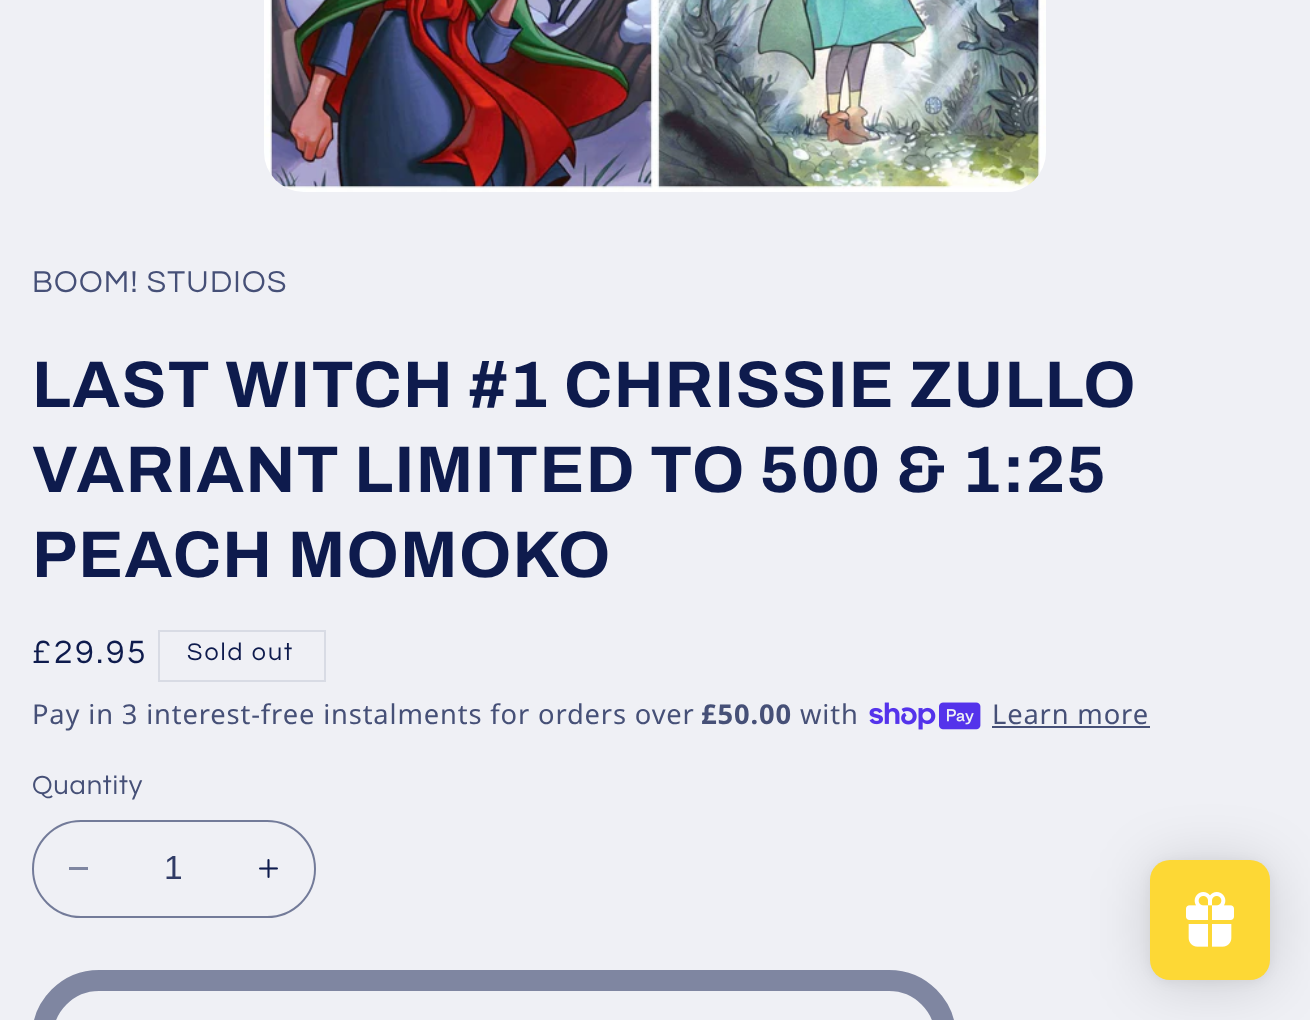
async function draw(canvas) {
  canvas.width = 1310;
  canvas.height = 1020;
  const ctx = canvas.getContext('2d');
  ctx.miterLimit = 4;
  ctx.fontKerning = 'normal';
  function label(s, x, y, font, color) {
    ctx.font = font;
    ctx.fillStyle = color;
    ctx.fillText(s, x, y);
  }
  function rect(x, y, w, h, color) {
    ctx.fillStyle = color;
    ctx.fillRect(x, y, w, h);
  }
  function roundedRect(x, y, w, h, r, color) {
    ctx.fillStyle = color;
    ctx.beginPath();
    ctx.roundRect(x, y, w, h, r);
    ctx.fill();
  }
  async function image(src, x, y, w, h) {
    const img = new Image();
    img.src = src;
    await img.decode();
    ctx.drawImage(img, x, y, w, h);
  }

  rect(0, 0, 1310, 1020, '#eff0f5');
  await image('assets/img1.png', 264, 0, 782, 192);
  ctx.letterSpacing = '1.25px';
  label('BOOM! STUDIOS', 32, 292, '31.5px Questrial', '#465077');
  ctx.letterSpacing = '1.3px';
  label('LAST WITCH #1 CHRISSIE ZULLO', 32, 407, 'bold 66px Archivo', '#0e1b4d');
  label('VARIANT LIMITED TO 500 & 1:25', 32, 492, 'bold 66px Archivo', '#0e1b4d');
  label('PEACH MOMOKO', 32, 577, 'bold 66px Archivo', '#0e1b4d');
  ctx.letterSpacing = '2.75px';
  label('£29.95', 32, 663, '33.5px Questrial', '#0e1b4d');
  ctx.strokeStyle = '#d8dbe4';
  ctx.lineWidth = 2;
  ctx.strokeRect(159, 631, 166, 50);
  ctx.letterSpacing = '2px';
  label('Sold out', 187, 660, '25px Questrial', '#0e1b4d');
  ctx.letterSpacing = '0.85px';
  label('Pay in 3 interest-free instalments for orders over', 32, 724, '27.3px Noto Sans', '#465077');
  label('£50.00', 701, 724, 'bold 27.3px Noto Sans', '#465077');
  label('with', 800, 724, '27.3px Noto Sans', '#465077');
  await image('assets/img2.png', 869, 702, 112, 28);
  label('Learn more', 992, 724, '27.3px Noto Sans', '#465077');
  rect(992, 726, 158, 2, '#465077');
  label('Quantity', 32, 794, '27.3px Questrial', '#465077');
  rect(69, 867, 19, 3, '#7f86a1');
  await image('assets/img3.png', 259, 859, 19, 19);
  ctx.beginPath();
  ctx.roundRect(33, 821, 282, 96, 48);
  ctx.strokeStyle = '#737b99';
  ctx.stroke();
  ctx.letterSpacing = '0px';
  label('1', 164, 879, '33.5px Liberation Sans', '#303b66');
  ctx.beginPath();
  ctx.roundRect(42.5, 980.5, 903, 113, 56.5);
  ctx.strokeStyle = '#7f86a1';
  ctx.lineWidth = 21;
  ctx.stroke();
  ctx.fillStyle = '#00000026';
  ctx.filter = 'blur(30px)';
  ctx.beginPath();
  ctx.roundRect(1150, 864, 120, 120, 20);
  ctx.fill();
  ctx.filter = 'none';
  ctx.fillStyle = '#0000000d';
  ctx.filter = 'blur(6px)';
  ctx.beginPath();
  ctx.roundRect(1150, 862, 120, 120, 20);
  ctx.fill();
  ctx.filter = 'none';
  roundedRect(1150, 860, 120, 120, 20, '#fdd835');
  await image('assets/img4.png', 1186, 892, 48, 55);
}

draw(document.querySelector('canvas'));
